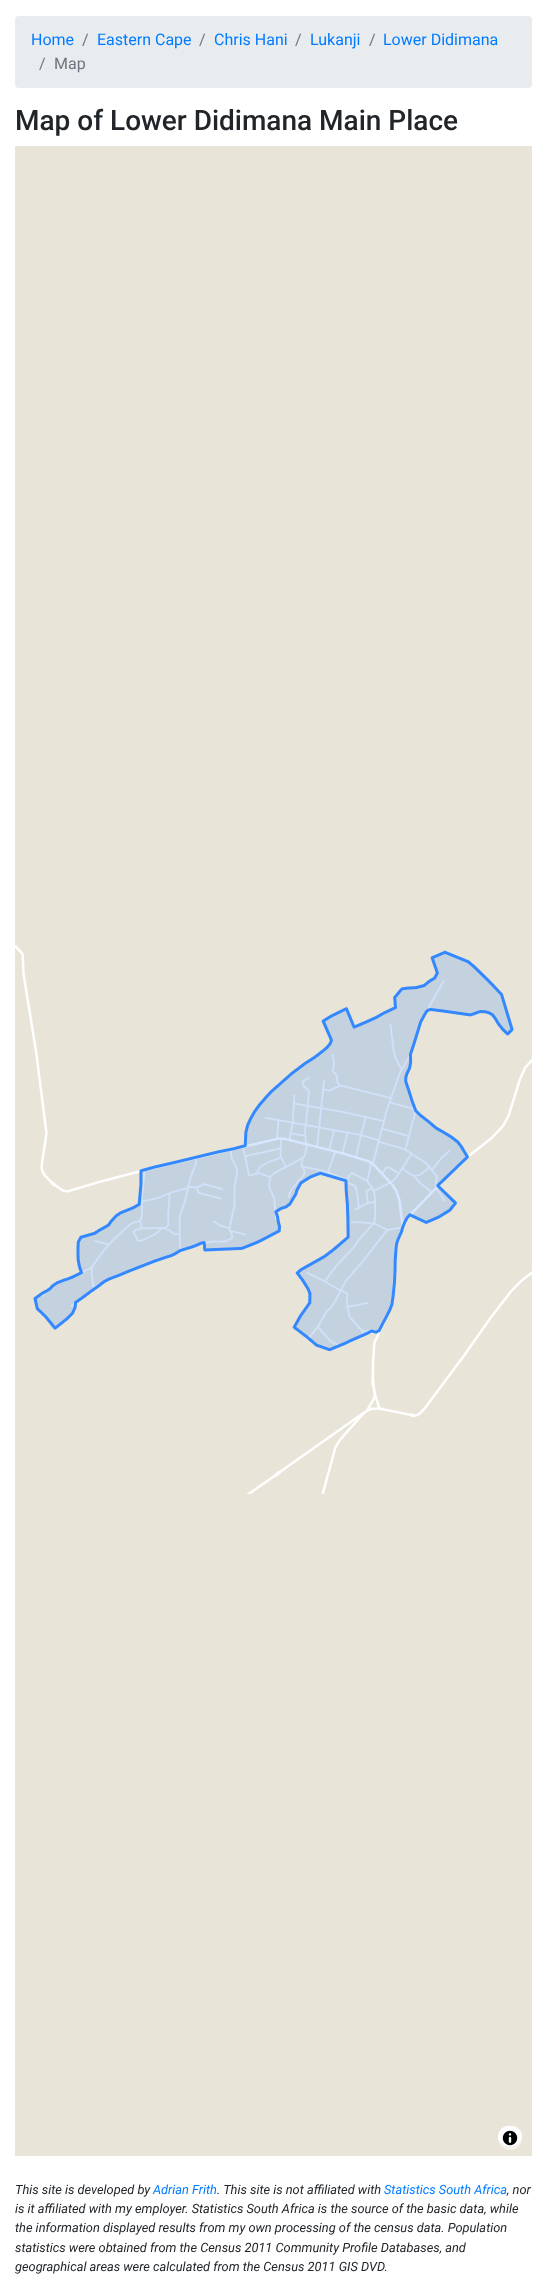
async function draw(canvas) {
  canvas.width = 547;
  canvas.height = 2292;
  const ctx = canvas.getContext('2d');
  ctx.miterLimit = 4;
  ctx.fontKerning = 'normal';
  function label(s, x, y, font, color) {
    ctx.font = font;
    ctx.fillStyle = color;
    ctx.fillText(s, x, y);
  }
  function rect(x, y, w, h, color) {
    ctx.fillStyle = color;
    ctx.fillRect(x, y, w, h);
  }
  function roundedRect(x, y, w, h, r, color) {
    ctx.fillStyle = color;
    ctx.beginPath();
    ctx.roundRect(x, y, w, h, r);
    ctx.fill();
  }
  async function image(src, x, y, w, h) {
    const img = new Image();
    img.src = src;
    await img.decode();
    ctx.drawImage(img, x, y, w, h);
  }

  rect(0, 0, 547, 2292, '#fff');
  roundedRect(15, 16, 517, 72, 4, '#e9ecef');
  label('Home', 31, 45, '16px Roboto', '#007bff');
  label('/', 82, 45, '16px Roboto', '#6c757d');
  label('Eastern Cape', 97, 45, '16px Roboto', '#007bff');
  label('/', 199, 45, '16px Roboto', '#6c757d');
  label('Chris Hani', 214, 45, '16px Roboto', '#007bff');
  label('/', 295, 45, '16px Roboto', '#6c757d');
  label('Lukanji', 310, 45, '16px Roboto', '#007bff');
  label('/', 369, 45, '16px Roboto', '#6c757d');
  label('Lower Didimana', 383, 45, '16px Roboto', '#007bff');
  label('/', 39, 69, '16px Roboto', '#6c757d');
  label('Map', 54, 69, '16px Roboto', '#6c757d');
  label('Map of Lower Didimana Main Place', 15, 130, '500 28px Roboto', '#212529');
  await image('assets/img1.png', 15, 146, 517, 2010);
  roundedRect(498, 2126, 24, 20, 10, '#fff');
  ctx.fillStyle = '#ffffff80';
  ctx.beginPath();
  ctx.arc(510, 2138, 12, 0, 2 * Math.PI);
  ctx.fill();
  await image('assets/img2.png', 502, 2130, 16, 16);
  label('This site is developed by', 15, 2194, 'italic 12.8px Roboto', '#212529');
  label('Adrian Frith', 153, 2194, 'italic 12.8px Roboto', '#007bff');
  label('. This site is not affiliated with', 217, 2194, 'italic 12.8px Roboto', '#212529');
  label('Statistics South Africa', 384, 2194, 'italic 12.8px Roboto', '#007bff');
  label(', nor', 507, 2194, 'italic 12.8px Roboto', '#212529');
  label('is it affiliated with my employer. Statistics South Africa is the source of the basic data, while', 15, 2213, 'italic 12.8px Roboto', '#212529');
  label('the information displayed results from my own processing of the census data. Population', 15, 2232, 'italic 12.8px Roboto', '#212529');
  label('statistics were obtained from the Census 2011 Community Profile Databases, and', 15, 2252, 'italic 12.8px Roboto', '#212529');
  label('geographical areas were calculated from the Census 2011 GIS DVD.', 15, 2271, 'italic 12.8px Roboto', '#212529');
}

draw(document.querySelector('canvas'));
